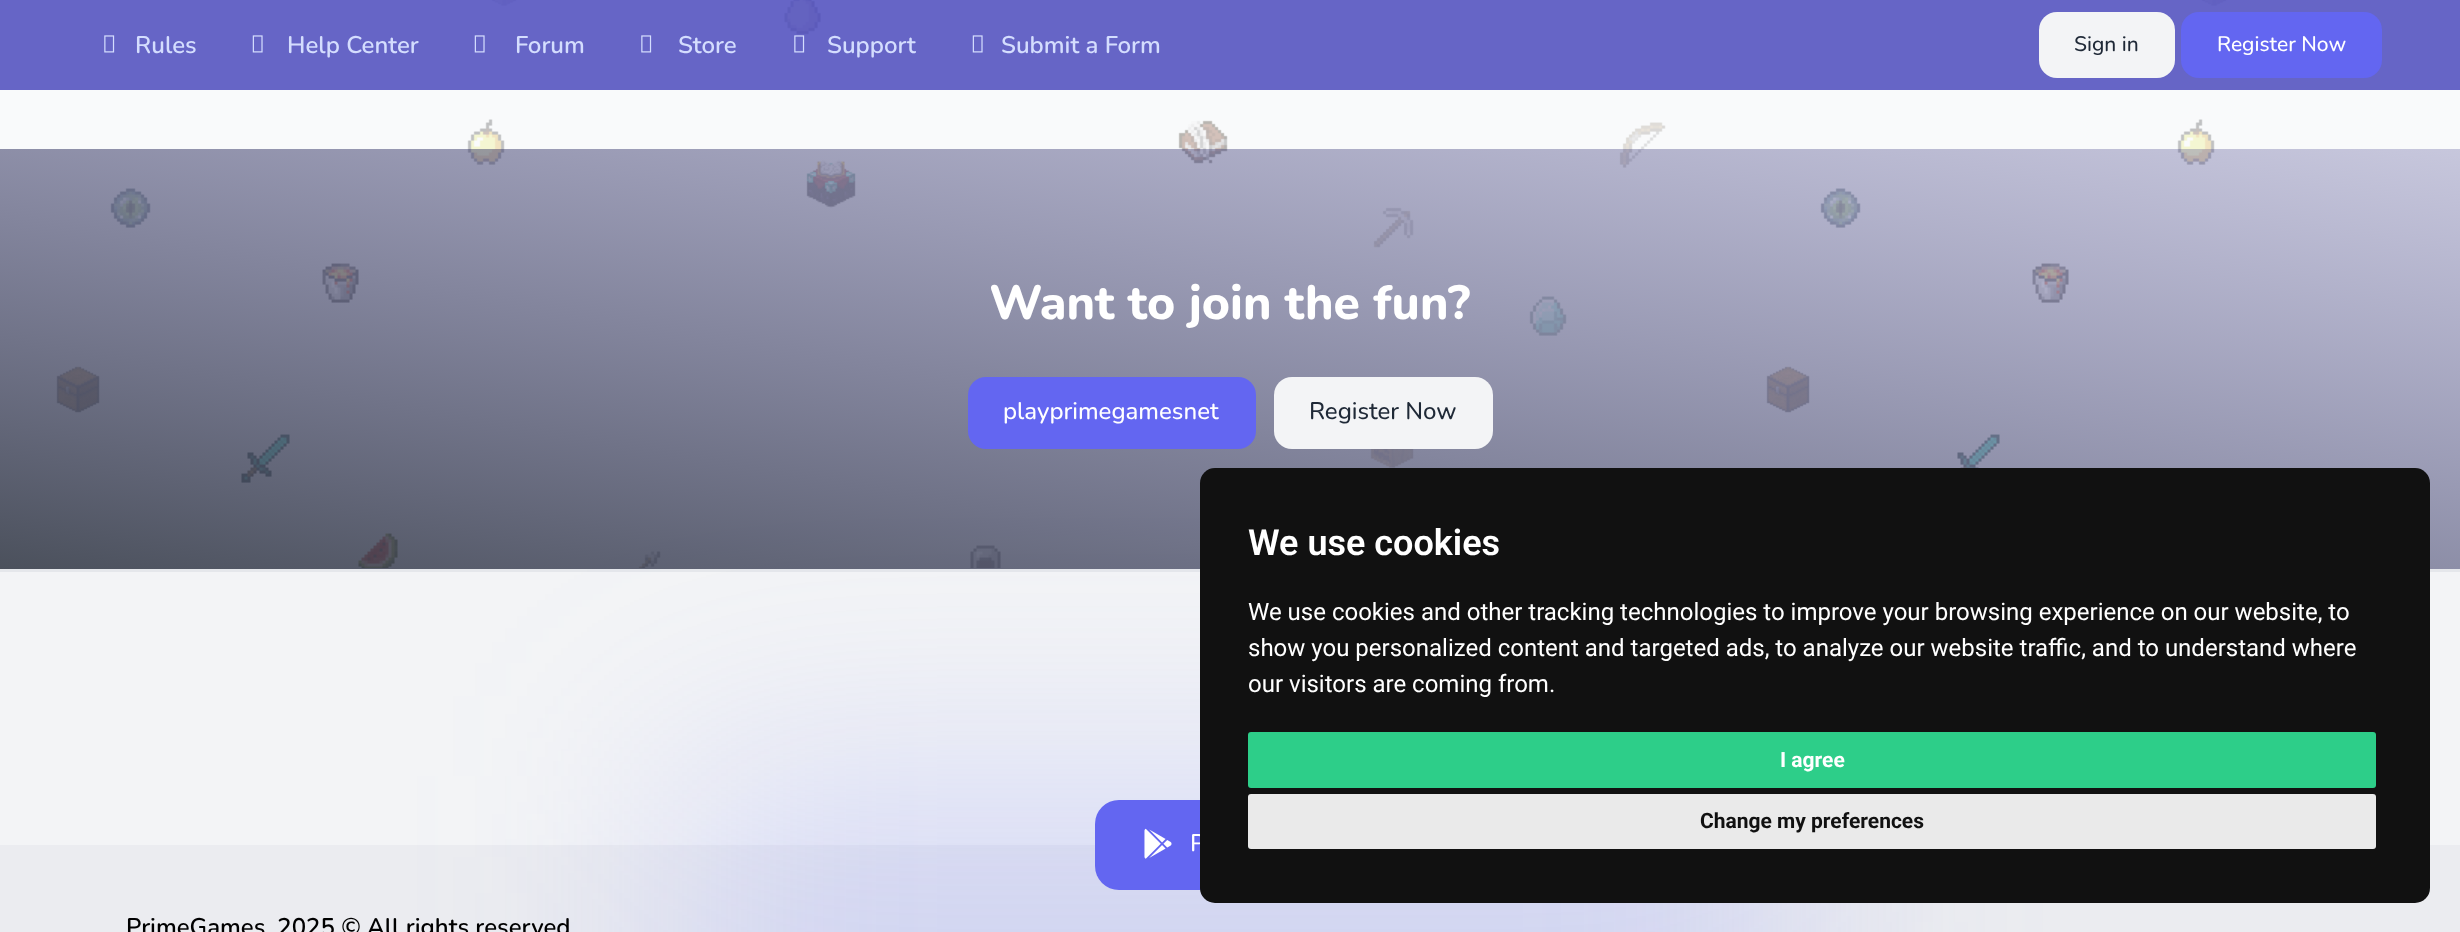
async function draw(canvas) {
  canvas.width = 2460;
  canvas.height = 932;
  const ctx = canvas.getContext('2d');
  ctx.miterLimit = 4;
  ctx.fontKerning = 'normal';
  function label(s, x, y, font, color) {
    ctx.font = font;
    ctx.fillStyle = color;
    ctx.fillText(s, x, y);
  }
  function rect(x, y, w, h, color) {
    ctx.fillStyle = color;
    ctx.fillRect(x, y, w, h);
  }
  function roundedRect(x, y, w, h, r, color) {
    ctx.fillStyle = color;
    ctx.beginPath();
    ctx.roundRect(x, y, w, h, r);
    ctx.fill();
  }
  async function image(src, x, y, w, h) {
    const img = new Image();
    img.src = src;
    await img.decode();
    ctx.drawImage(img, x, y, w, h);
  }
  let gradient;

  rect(0, 0, 2460, 932, '#f9fafb');
  rect(0, 572, 2460, 273, '#f3f4f6');
  rect(0, 569, 2460, 3, '#e5e7eb');
  rect(0, 845, 2460, 87, '#ebecf0');
  ctx.fillStyle = '#818cf840';
  ctx.filter = 'blur(120px)';
  ctx.beginPath();
  ctx.rect(675, 776, 1110, 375);
  ctx.fill();
  ctx.filter = 'none';
  await image('assets/img3.png', 56, 0, 2171, 568);
  rect(0, 0, 2460, 90, '#6366f1bf');
  rect(0, 0, 2460, 90, '#312e8166');
  await image('assets/img1.png', 104, 35, 11, 18);
  label('Rules', 135, 53, '600 24px Nunito', '#d4ddfe');
  await image('assets/img2.png', 252, 35, 11, 18);
  label('Help Center', 287, 53, '600 24px Nunito', '#d4ddfe');
  await image('assets/img2.png', 474, 35, 11, 18);
  label('Forum', 515, 53, '600 24px Nunito', '#d4ddfe');
  await image('assets/img1.png', 641, 35, 11, 18);
  label('Store', 678, 53, '600 24px Nunito', '#d4ddfe');
  await image('assets/img1.png', 794, 35, 11, 18);
  label('Support', 827, 53, '600 24px Nunito', '#d4ddfe');
  await image('assets/img2.png', 972, 35, 11, 18);
  label('Submit a Form', 1001, 53, '600 24px Nunito', '#d4ddfe');
  roundedRect(2039, 12, 136, 66, 18, '#f3f4f6');
  label('Sign in', 2074, 51, '500 21px Nunito', '#1f2937');
  roundedRect(2181, 12, 201, 66, 18, '#6366f1');
  label('Register Now', 2217, 51, '500 21px Nunito', '#fff');
  gradient = ctx.createLinearGradient(1160, 767, 1300, -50);
  gradient.addColorStop(0, '#111827bf');
  gradient.addColorStop(1, '#312e8140');
  ctx.fillStyle = gradient;
  ctx.fillRect(0, 149, 2460, 420);
  label('Want to join the fun?', 989, 319, '800 48px Nunito', '#fff');
  roundedRect(968, 377, 288, 72, 18, '#6366f1');
  label('playprimegamesnet', 1003, 419, '500 24px Nunito', '#fff');
  roundedRect(1274, 377, 219, 72, 18, '#f3f4f6');
  label('Register Now', 1309, 419, '500 24px Nunito', '#1f2937');
  roundedRect(1095, 800, 270, 90, 24, '#6366f1');
  await image('assets/img4.png', 1144, 828, 28, 31);
  label('P', 1190, 851, '500 24px Nunito', '#fff');
  label('PrimeGames, 2025 © All rights reserved', 126, 935, '600 24px Nunito', '#000');
  roundedRect(1200, 468, 1230, 435, 15, '#111');
  label('We use cookies', 1248, 555, '600 36px Roboto', '#fff');
  label('We use cookies and other tracking technologies to improve your browsing experience on our website, to', 1248, 620, '24px Roboto', '#fff');
  label('show you personalized content and targeted ads, to analyze our website traffic, and to understand where', 1248, 656, '24px Roboto', '#fff');
  label('our visitors are coming from.', 1248, 692, '24px Roboto', '#fff');
  roundedRect(1248, 732, 1128, 56, 3, '#2dce89');
  label('I agree', 1780, 767, 'bold 21px Roboto', '#fff');
  roundedRect(1248, 794, 1128, 55, 3, '#eaeaea');
  label('Change my preferences', 1700, 828, 'bold 21px Roboto', '#111');
}

draw(document.querySelector('canvas'));
